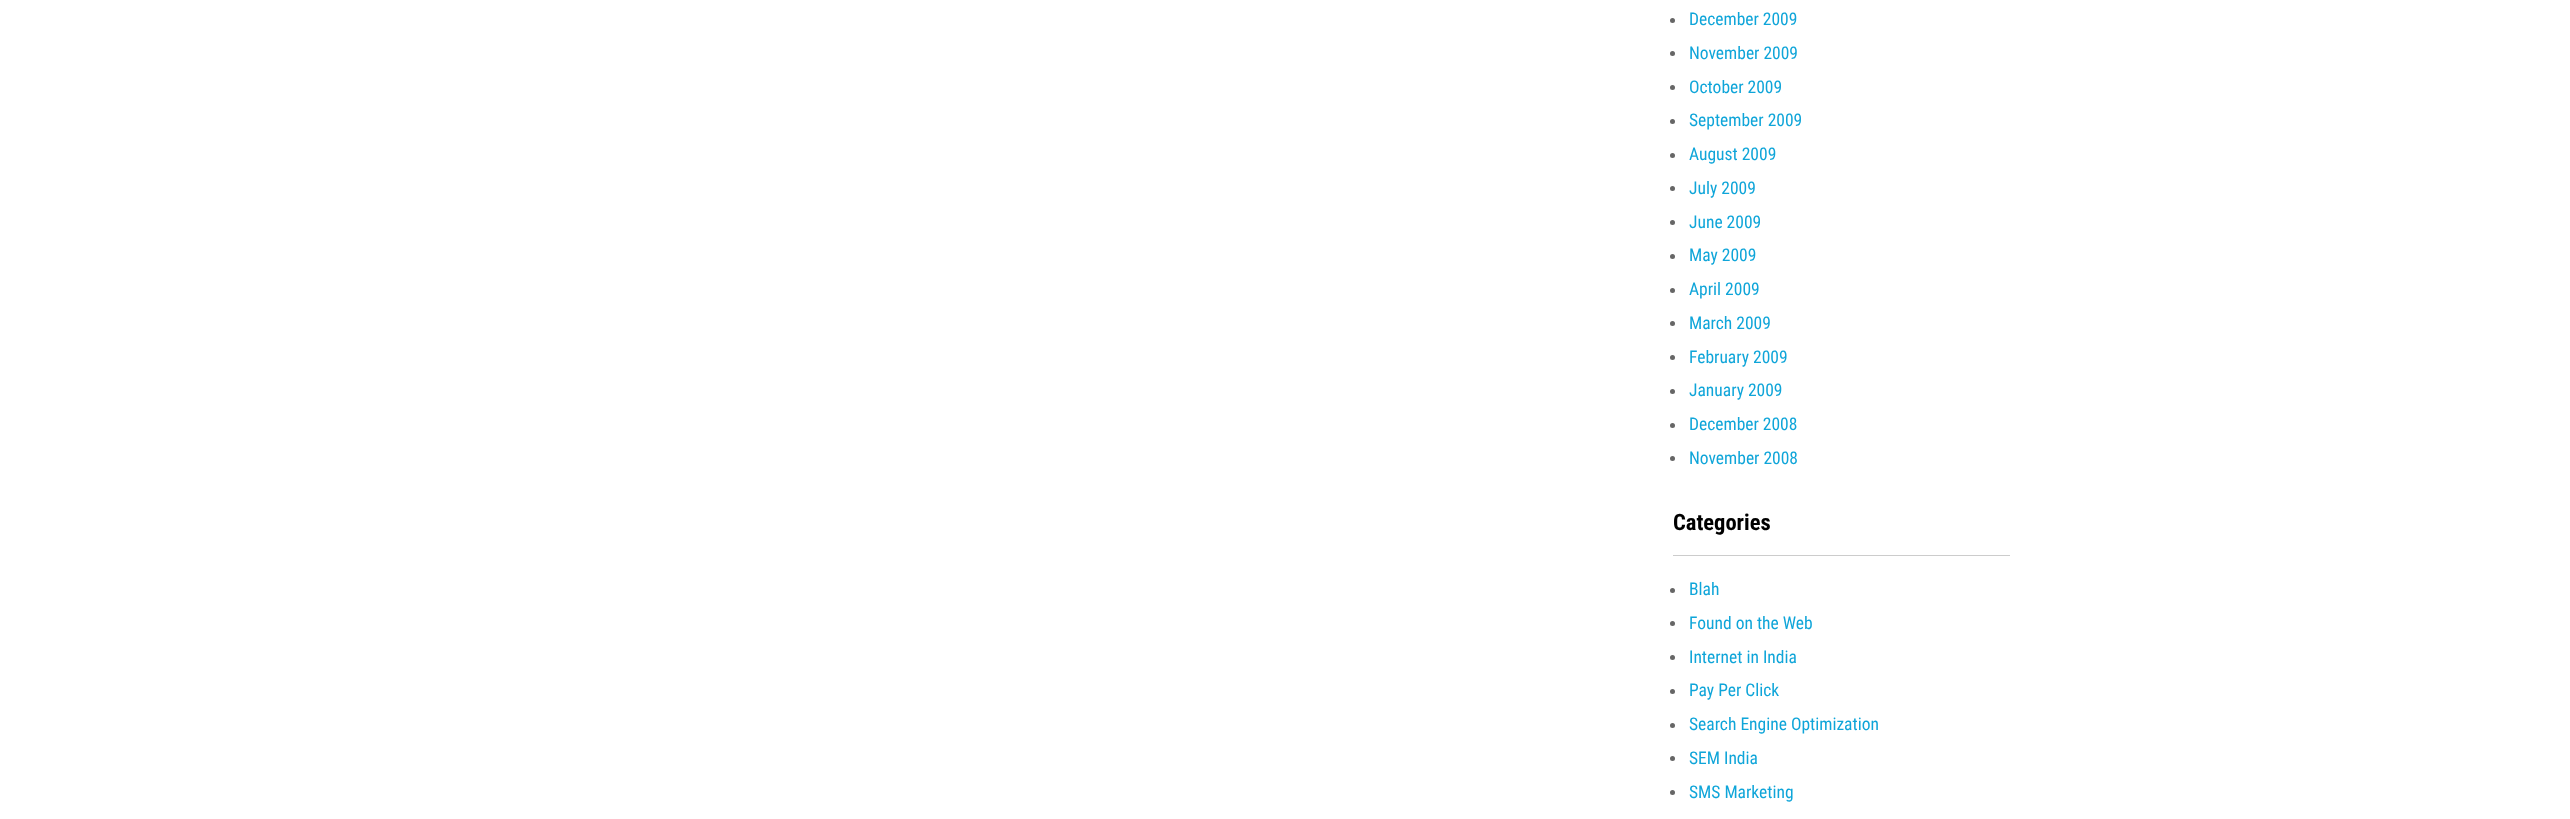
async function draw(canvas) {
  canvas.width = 2570;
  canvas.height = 819;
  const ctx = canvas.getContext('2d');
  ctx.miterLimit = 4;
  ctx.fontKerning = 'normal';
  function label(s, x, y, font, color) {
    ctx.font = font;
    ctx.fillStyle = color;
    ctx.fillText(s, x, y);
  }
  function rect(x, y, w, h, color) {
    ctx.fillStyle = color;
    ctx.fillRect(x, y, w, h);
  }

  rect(0, 0, 2570, 819, '#fff');
  ctx.fillStyle = '#666';
  ctx.beginPath();
  ctx.arc(1672.5, 20.5, 2.5, 0, 2 * Math.PI);
  ctx.fill();
  label('December 2009', 1689, 25, '17.5px Roboto Condensed', '#0fa5d9');
  ctx.fillStyle = '#666';
  ctx.beginPath();
  ctx.arc(1672.5, 53.5, 2.5, 0, 2 * Math.PI);
  ctx.fill();
  label('November 2009', 1689, 59, '17.5px Roboto Condensed', '#0fa5d9');
  ctx.fillStyle = '#666';
  ctx.beginPath();
  ctx.arc(1672.5, 87.5, 2.5, 0, 2 * Math.PI);
  ctx.fill();
  label('October 2009', 1689, 93, '17.5px Roboto Condensed', '#0fa5d9');
  ctx.fillStyle = '#666';
  ctx.beginPath();
  ctx.arc(1672.5, 121.5, 2.5, 0, 2 * Math.PI);
  ctx.fill();
  label('September 2009', 1689, 126, '17.5px Roboto Condensed', '#0fa5d9');
  ctx.fillStyle = '#666';
  ctx.beginPath();
  ctx.arc(1672.5, 155.5, 2.5, 0, 2 * Math.PI);
  ctx.fill();
  label('August 2009', 1689, 160, '17.5px Roboto Condensed', '#0fa5d9');
  ctx.fillStyle = '#666';
  ctx.beginPath();
  ctx.arc(1672.5, 188.5, 2.5, 0, 2 * Math.PI);
  ctx.fill();
  label('July 2009', 1689, 194, '17.5px Roboto Condensed', '#0fa5d9');
  ctx.fillStyle = '#666';
  ctx.beginPath();
  ctx.arc(1672.5, 222.5, 2.5, 0, 2 * Math.PI);
  ctx.fill();
  label('June 2009', 1689, 228, '17.5px Roboto Condensed', '#0fa5d9');
  ctx.fillStyle = '#666';
  ctx.beginPath();
  ctx.arc(1672.5, 256.5, 2.5, 0, 2 * Math.PI);
  ctx.fill();
  label('May 2009', 1689, 261, '17.5px Roboto Condensed', '#0fa5d9');
  ctx.fillStyle = '#666';
  ctx.beginPath();
  ctx.arc(1672.5, 290.5, 2.5, 0, 2 * Math.PI);
  ctx.fill();
  label('April 2009', 1689, 295, '17.5px Roboto Condensed', '#0fa5d9');
  ctx.fillStyle = '#666';
  ctx.beginPath();
  ctx.arc(1672.5, 323.5, 2.5, 0, 2 * Math.PI);
  ctx.fill();
  label('March 2009', 1689, 329, '17.5px Roboto Condensed', '#0fa5d9');
  ctx.fillStyle = '#666';
  ctx.beginPath();
  ctx.arc(1672.5, 357.5, 2.5, 0, 2 * Math.PI);
  ctx.fill();
  label('February 2009', 1689, 363, '17.5px Roboto Condensed', '#0fa5d9');
  ctx.fillStyle = '#666';
  ctx.beginPath();
  ctx.arc(1672.5, 391.5, 2.5, 0, 2 * Math.PI);
  ctx.fill();
  label('January 2009', 1689, 396, '17.5px Roboto Condensed', '#0fa5d9');
  ctx.fillStyle = '#666';
  ctx.beginPath();
  ctx.arc(1672.5, 425.5, 2.5, 0, 2 * Math.PI);
  ctx.fill();
  label('December 2008', 1689, 430, '17.5px Roboto Condensed', '#0fa5d9');
  ctx.fillStyle = '#666';
  ctx.beginPath();
  ctx.arc(1672.5, 458.5, 2.5, 0, 2 * Math.PI);
  ctx.fill();
  label('November 2008', 1689, 464, '17.5px Roboto Condensed', '#0fa5d9');
  rect(1673, 555, 337, 1, '#ccc');
  label('Categories', 1673, 530, 'bold 22.5px Roboto Condensed', '#000');
  ctx.fillStyle = '#666';
  ctx.beginPath();
  ctx.arc(1672.5, 590.5, 2.5, 0, 2 * Math.PI);
  ctx.fill();
  label('Blah', 1689, 595, '17.5px Roboto Condensed', '#0fa5d9');
  ctx.fillStyle = '#666';
  ctx.beginPath();
  ctx.arc(1672.5, 623.5, 2.5, 0, 2 * Math.PI);
  ctx.fill();
  label('Found on the Web', 1689, 629, '17.5px Roboto Condensed', '#0fa5d9');
  ctx.fillStyle = '#666';
  ctx.beginPath();
  ctx.arc(1672.5, 657.5, 2.5, 0, 2 * Math.PI);
  ctx.fill();
  label('Internet in India', 1689, 663, '17.5px Roboto Condensed', '#0fa5d9');
  ctx.fillStyle = '#666';
  ctx.beginPath();
  ctx.arc(1672.5, 691.5, 2.5, 0, 2 * Math.PI);
  ctx.fill();
  label('Pay Per Click', 1689, 696, '17.5px Roboto Condensed', '#0fa5d9');
  ctx.fillStyle = '#666';
  ctx.beginPath();
  ctx.arc(1672.5, 725.5, 2.5, 0, 2 * Math.PI);
  ctx.fill();
  label('Search Engine Optimization', 1689, 730, '17.5px Roboto Condensed', '#0fa5d9');
  ctx.fillStyle = '#666';
  ctx.beginPath();
  ctx.arc(1672.5, 758.5, 2.5, 0, 2 * Math.PI);
  ctx.fill();
  label('SEM India', 1689, 764, '17.5px Roboto Condensed', '#0fa5d9');
  ctx.fillStyle = '#666';
  ctx.beginPath();
  ctx.arc(1672.5, 792.5, 2.5, 0, 2 * Math.PI);
  ctx.fill();
  label('SMS Marketing', 1689, 798, '17.5px Roboto Condensed', '#0fa5d9');
}

draw(document.querySelector('canvas'));
